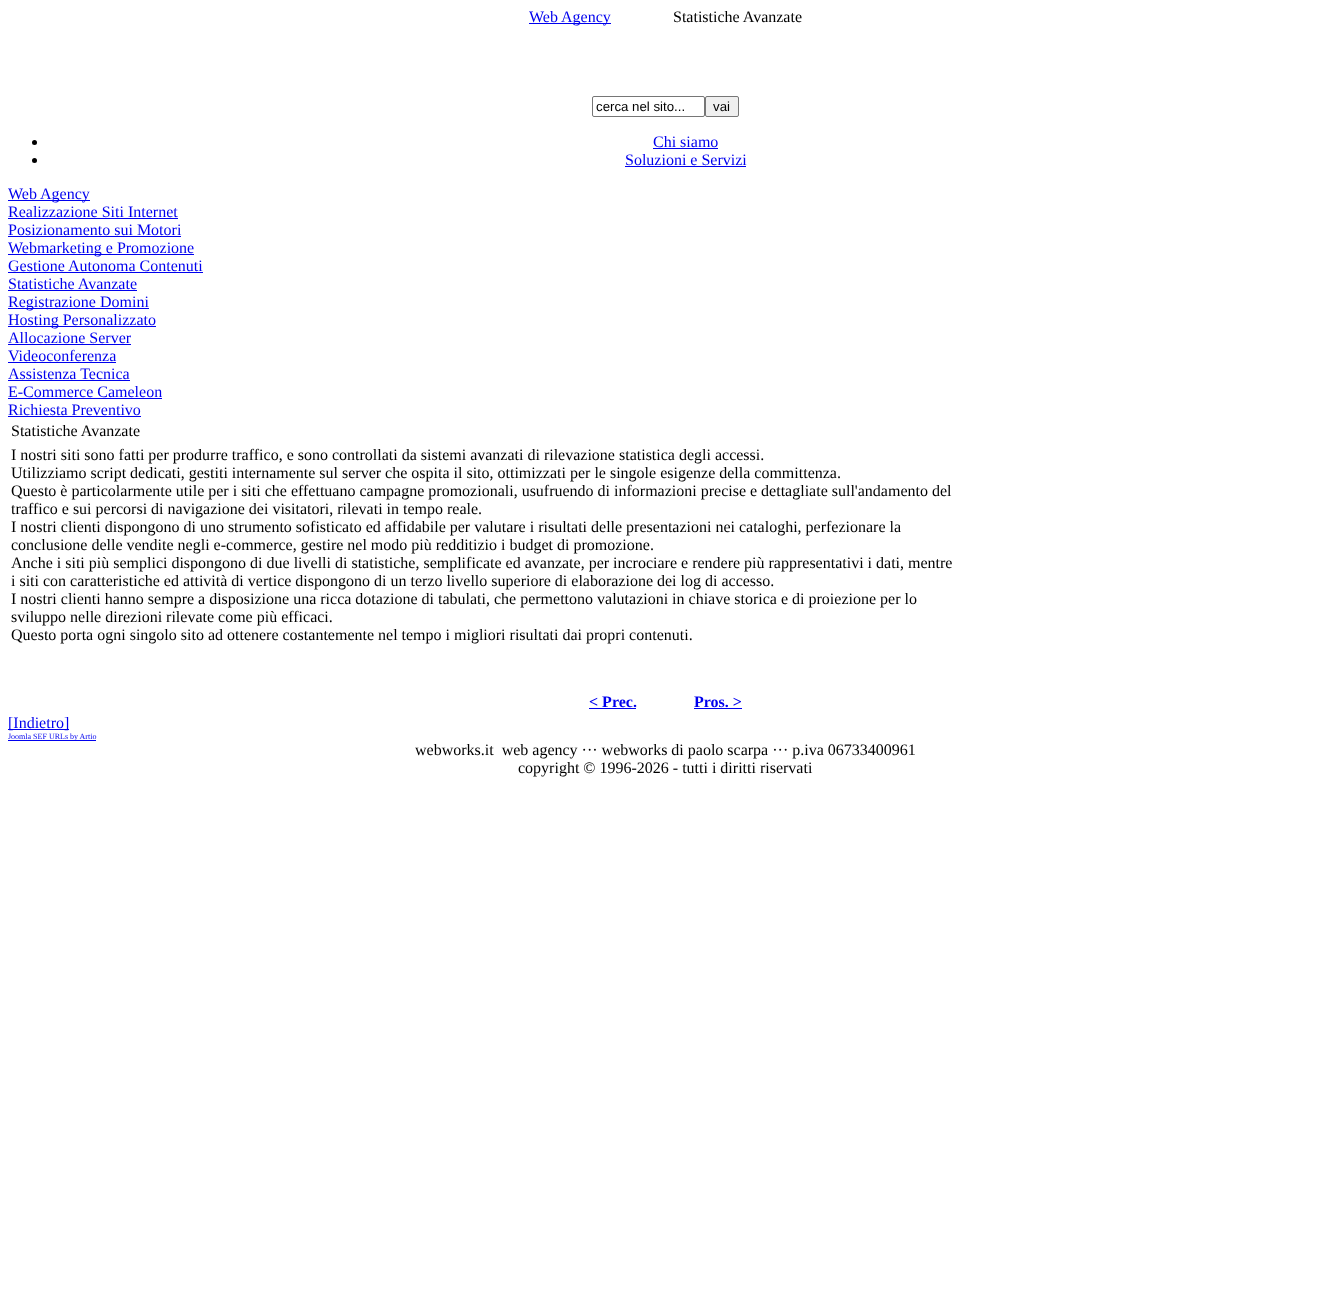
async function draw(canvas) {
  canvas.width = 1331;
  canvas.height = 1291;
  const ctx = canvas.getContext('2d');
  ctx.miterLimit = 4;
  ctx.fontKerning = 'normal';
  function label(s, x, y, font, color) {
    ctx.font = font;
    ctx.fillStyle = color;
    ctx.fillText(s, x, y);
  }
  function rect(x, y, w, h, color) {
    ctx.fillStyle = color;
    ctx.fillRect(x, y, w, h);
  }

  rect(0, 0, 1331, 1291, '#fff');
  rect(529, 23, 82, 1, '#00e');
  label('Web Agency', 529, 22, '16px Liberation Serif', '#00e');
  label('Statistiche Avanzate', 673, 22, '16px Liberation Serif', '#000');
  ctx.beginPath();
  ctx.roundRect(592.5, 96.5, 112, 20, 1.5);
  ctx.strokeStyle = '#767676';
  ctx.stroke();
  label('cerca nel sito...', 596, 111, '13.25px Liberation Sans', '#000');
  ctx.fillStyle = '#efefef';
  ctx.beginPath();
  ctx.roundRect(705.5, 96.5, 33, 20, 1.5);
  ctx.fill();
  ctx.stroke();
  label('vai', 713, 111, '13.25px Liberation Sans', '#000');
  ctx.beginPath();
  ctx.arc(34.5, 142.5, 2.5, 0, 2 * Math.PI);
  ctx.fill();
  label('Chi siamo', 653, 147, '16px Liberation Serif', '#00e');
  rect(653, 148, 65, 1, '#00e');
  ctx.fillStyle = '#000';
  ctx.beginPath();
  ctx.arc(34.5, 160.5, 2.5, 0, 2 * Math.PI);
  ctx.fill();
  label('Soluzioni e Servizi', 625, 165, '16px Liberation Serif', '#00e');
  rect(625, 166, 121, 1, '#00e');
  rect(8, 200, 82, 1, '#00e');
  label('Web Agency', 8, 199, '16px Liberation Serif', '#00e');
  label('Realizzazione Siti Internet', 8, 217, '16px Liberation Serif', '#00e');
  rect(8, 218, 170, 1, '#00e');
  label('Posizionamento sui Motori', 8, 235, '16px Liberation Serif', '#00e');
  rect(8, 236, 173, 1, '#00e');
  rect(8, 254, 186, 1, '#00e');
  label('Webmarketing e Promozione', 8, 253, '16px Liberation Serif', '#00e');
  label('Gestione Autonoma Contenuti', 8, 271, '16px Liberation Serif', '#00e');
  rect(8, 272, 195, 1, '#00e');
  label('Statistiche Avanzate', 8, 289, '16px Liberation Serif', '#00e');
  rect(8, 290, 129, 1, '#00e');
  rect(8, 308, 141, 1, '#00e');
  label('Registrazione Domini', 8, 307, '16px Liberation Serif', '#00e');
  rect(8, 326, 148, 1, '#00e');
  label('Hosting Personalizzato', 8, 325, '16px Liberation Serif', '#00e');
  label('Allocazione Server', 8, 343, '16px Liberation Serif', '#00e');
  rect(8, 344, 123, 1, '#00e');
  label('Videoconferenza', 8, 361, '16px Liberation Serif', '#00e');
  rect(8, 362, 108, 1, '#00e');
  label('Assistenza Tecnica', 8, 379, '16px Liberation Serif', '#00e');
  rect(8, 380, 122, 1, '#00e');
  label('E-Commerce Cameleon', 8, 397, '16px Liberation Serif', '#00e');
  rect(8, 398, 154, 1, '#00e');
  label('Richiesta Preventivo', 8, 415, '16px Liberation Serif', '#00e');
  rect(8, 416, 133, 1, '#00e');
  label('Statistiche Avanzate', 11, 436, '16px Liberation Serif', '#000');
  label('I nostri siti sono fatti per produrre traffico, e sono controllati da sistemi avanzati di rilevazione statistica degli accessi.', 11, 460, '16px Liberation Serif', '#000');
  label('Utilizziamo script dedicati, gestiti internamente sul server che ospita il sito, ottimizzati per le singole esigenze della committenza.', 11, 478, '16px Liberation Serif', '#000');
  label('Questo è particolarmente utile per i siti che effettuano campagne promozionali, usufruendo di informazioni precise e dettagliate sull\'andamento del', 11, 496, '16px Liberation Serif', '#000');
  label('traffico e sui percorsi di navigazione dei visitatori, rilevati in tempo reale.', 11, 514, '16px Liberation Serif', '#000');
  label('I nostri clienti dispongono di uno strumento sofisticato ed affidabile per valutare i risultati delle presentazioni nei cataloghi, perfezionare la', 11, 532, '16px Liberation Serif', '#000');
  label('conclusione delle vendite negli e-commerce, gestire nel modo più redditizio i budget di promozione.', 11, 550, '16px Liberation Serif', '#000');
  label('Anche i siti più semplici dispongono di due livelli di statistiche, semplificate ed avanzate, per incrociare e rendere più rappresentativi i dati, mentre', 11, 568, '16px Liberation Serif', '#000');
  label('i siti con caratteristiche ed attività di vertice dispongono di un terzo livello superiore di elaborazione dei log di accesso.', 11, 586, '16px Liberation Serif', '#000');
  label('I nostri clienti hanno sempre a disposizione una ricca dotazione di tabulati, che permettono valutazioni in chiave storica e di proiezione per lo', 11, 604, '16px Liberation Serif', '#000');
  label('sviluppo nelle direzioni rilevate come più efficaci.', 11, 622, '16px Liberation Serif', '#000');
  label('Questo porta ogni singolo sito ad ottenere costantemente nel tempo i migliori risultati dai propri contenuti.', 11, 640, '16px Liberation Serif', '#000');
  label('< Prec.', 589, 707, 'bold 16px Liberation Serif', '#00e');
  rect(589, 708, 47, 1, '#00e');
  label('Pros. >', 694, 707, 'bold 16px Liberation Serif', '#00e');
  rect(694, 708, 48, 1, '#00e');
  rect(8, 729, 61, 1, '#00e');
  label('[Indietro]', 8, 728, '16px Liberation Serif', '#00e');
  rect(8, 740, 88, 1, '#00e');
  label('Joomla SEF URLs by Artio', 8, 739, '8px Liberation Serif', '#00e');
  label('webworks.it  web agency ··· webworks di paolo scarpa ··· p.iva 06733400961', 415, 755, '16px Liberation Serif', '#000');
  label('copyright © 1996-2026 - tutti i diritti riservati', 518, 773, '16px Liberation Serif', '#000');
}

draw(document.querySelector('canvas'));
